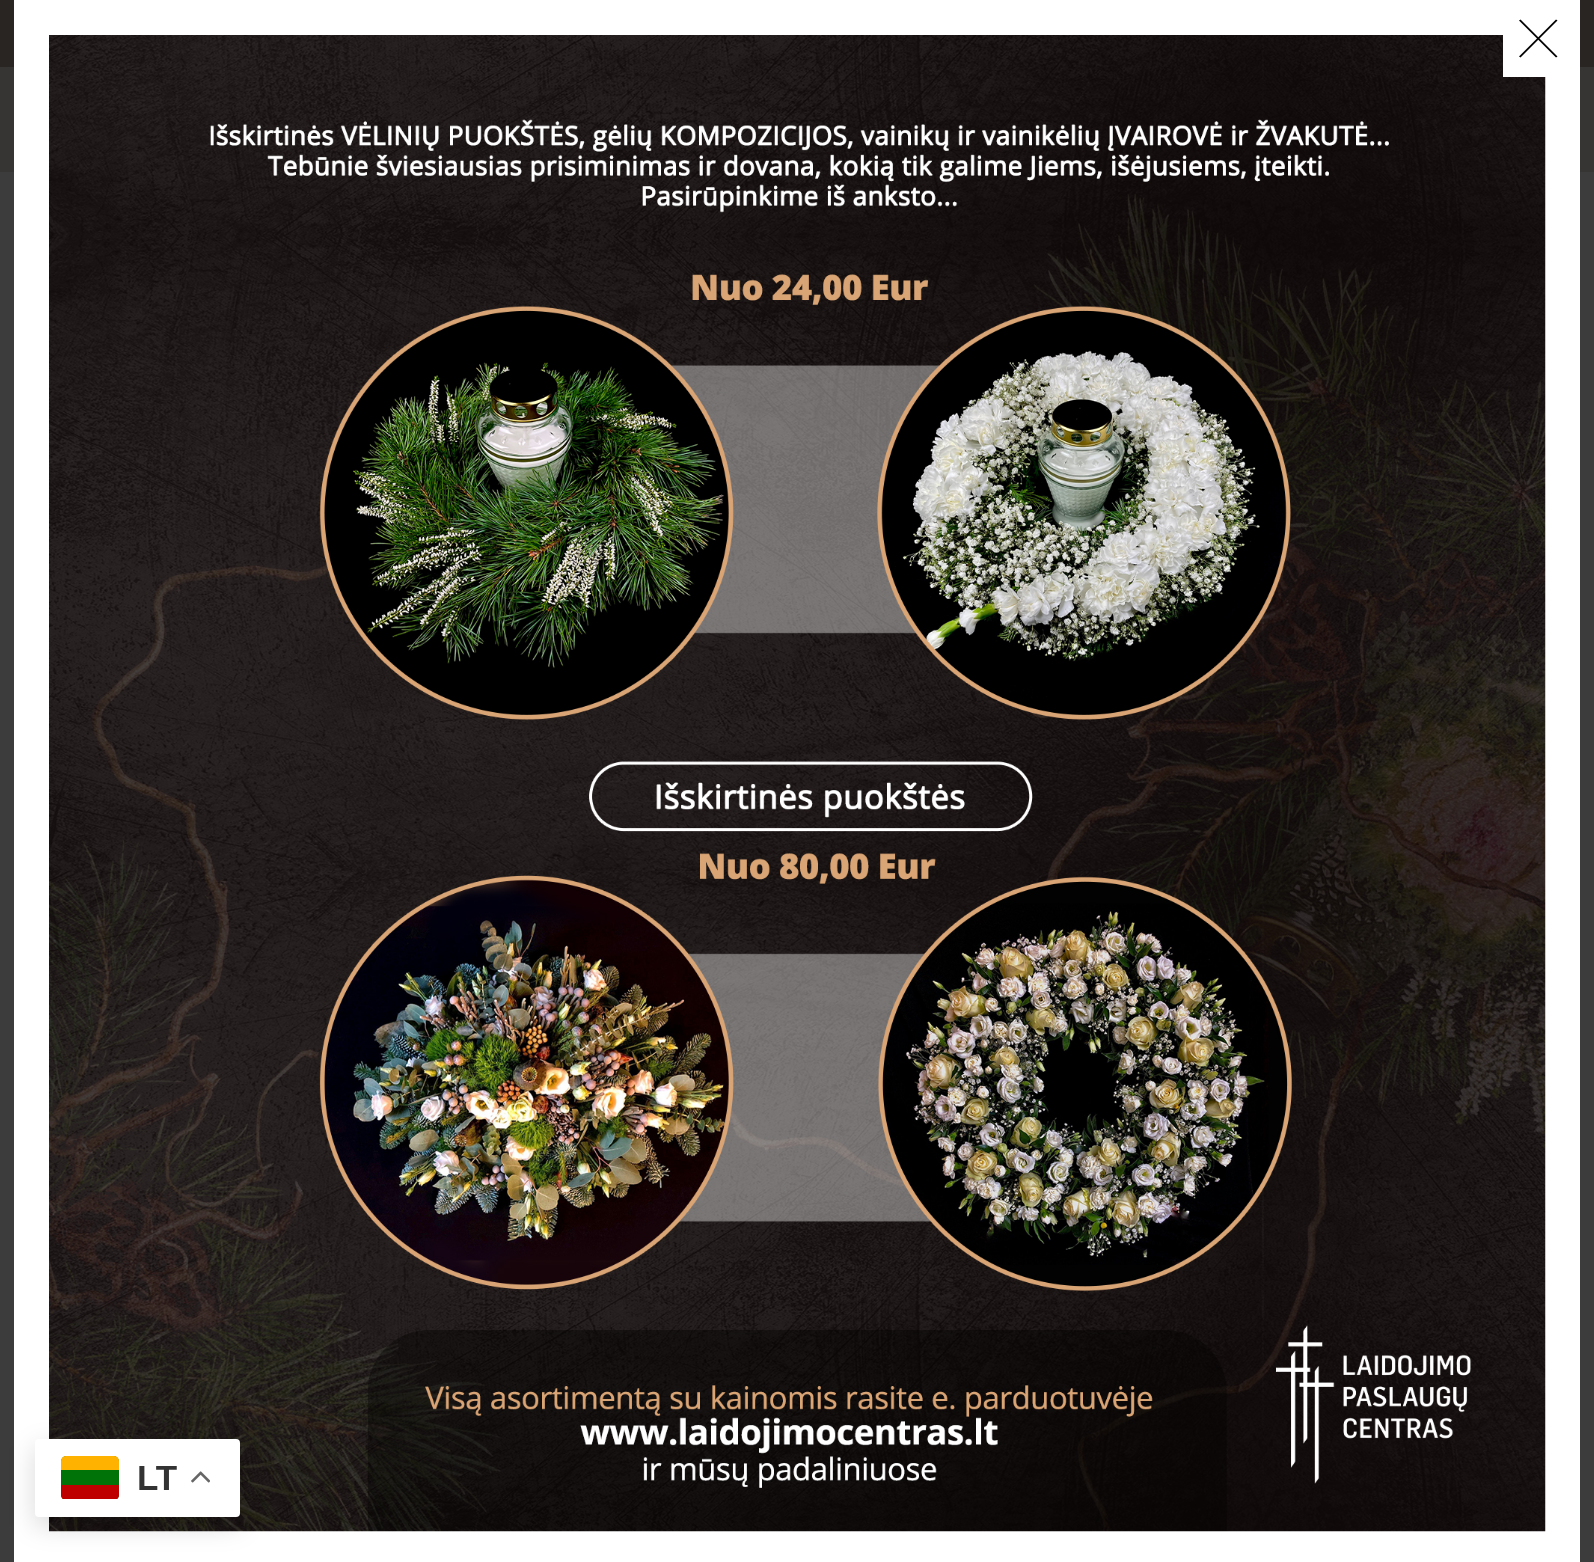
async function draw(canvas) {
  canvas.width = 1594;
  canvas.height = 1562;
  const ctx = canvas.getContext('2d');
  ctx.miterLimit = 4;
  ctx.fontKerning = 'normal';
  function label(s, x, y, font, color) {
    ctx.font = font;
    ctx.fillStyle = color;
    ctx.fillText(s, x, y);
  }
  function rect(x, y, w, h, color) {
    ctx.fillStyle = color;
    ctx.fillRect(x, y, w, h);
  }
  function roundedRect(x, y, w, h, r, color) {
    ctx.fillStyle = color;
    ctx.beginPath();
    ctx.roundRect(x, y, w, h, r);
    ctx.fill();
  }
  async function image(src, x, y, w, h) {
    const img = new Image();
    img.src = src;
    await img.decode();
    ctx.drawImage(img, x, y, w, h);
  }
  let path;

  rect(0, 0, 1594, 1562, '#3c3c3c');
  rect(0, 0, 1594, 67, '#282522');
  rect(0, 67, 1594, 105, '#373533');
  rect(14, 0, 1566, 1562, '#fff');
  await image('assets/img1.png', 49, 35, 1497, 1497);
  rect(1503, 35, 43, 42, '#fff');
  ctx.fillStyle = '#000';
  path = new Path2D('M1520.5 19.5L1557.5 56.5L1556 57.5L1519 20.5Z');
  ctx.fill(path);
  path = new Path2D('M1519 56.5L1556 19.5L1557.5 20.5L1520.5 57.5Z');
  ctx.fill(path);
  ctx.fillStyle = '#00000026';
  ctx.filter = 'blur(13px)';
  ctx.beginPath();
  ctx.roundRect(35, 1447, 205, 79, 4);
  ctx.fill();
  ctx.filter = 'none';
  roundedRect(35, 1439, 205, 78, 4, '#fff');
  ctx.save();
  ctx.beginPath();
  ctx.roundRect(61, 1456, 58, 44, 5);
  ctx.clip();
  ctx.fillStyle = '#007308';
  ctx.beginPath();
  ctx.roundRect(61, 1456, 58, 43, [5, 5, 0, 0]);
  ctx.fill();
  rect(61, 1485, 58, 14, '#bf0000');
  ctx.restore();
  ctx.fillStyle = '#ffb300';
  ctx.beginPath();
  ctx.roundRect(61, 1456, 58, 14, [5, 5, 0, 0]);
  ctx.fill();
  label('LT', 137, 1490, 'bold 35px Liberation Sans', '#333');
  await image('assets/img2.png', 191, 1471, 19, 12);
}

draw(document.querySelector('canvas'));
